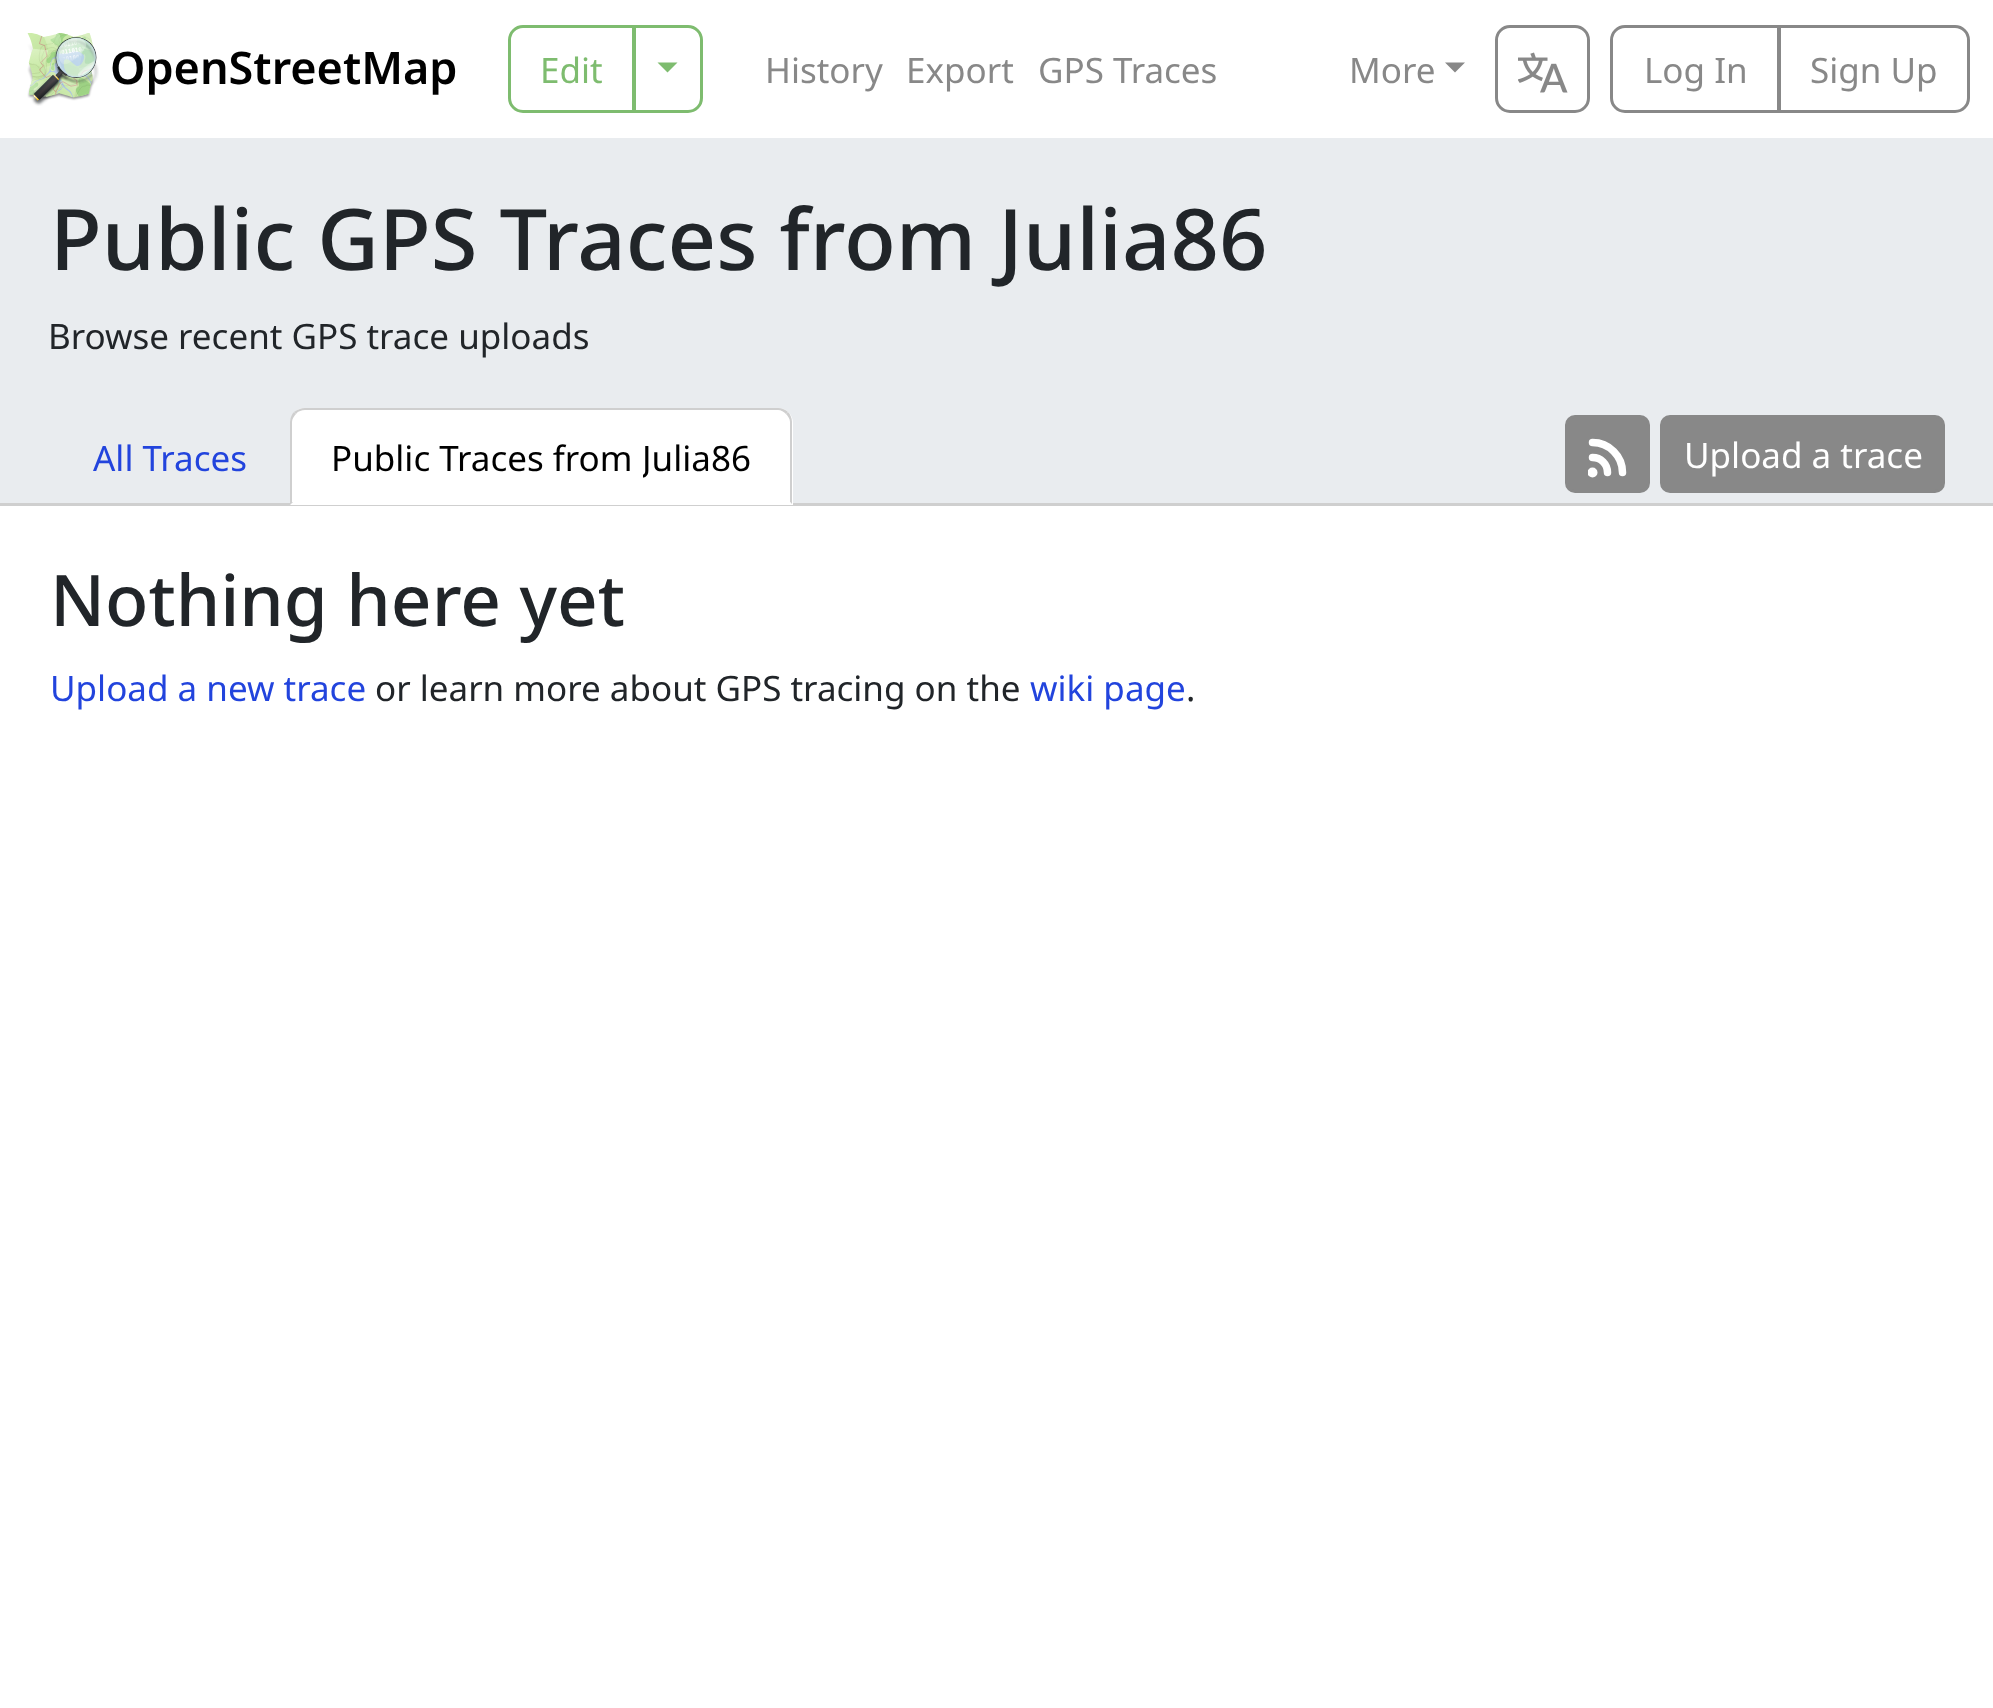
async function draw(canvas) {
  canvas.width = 1993;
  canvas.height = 1708;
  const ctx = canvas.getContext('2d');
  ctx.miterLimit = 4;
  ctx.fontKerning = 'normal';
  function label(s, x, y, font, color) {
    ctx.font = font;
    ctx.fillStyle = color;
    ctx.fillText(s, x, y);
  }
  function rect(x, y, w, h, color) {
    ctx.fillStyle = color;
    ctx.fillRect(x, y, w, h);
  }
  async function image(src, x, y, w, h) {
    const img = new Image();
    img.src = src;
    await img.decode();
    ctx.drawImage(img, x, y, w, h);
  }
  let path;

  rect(0, 0, 1993, 1708, '#fff');
  await image('assets/img1.png', 27, 33, 72, 73);
  label('OpenStreetMap', 110, 84, '600 45px Noto Sans', '#000');
  ctx.beginPath();
  ctx.roundRect(509.5, 26.5, 124, 85, [13.5, 0, 0, 13.5]);
  ctx.strokeStyle = '#7ebc6f';
  ctx.lineWidth = 3;
  ctx.stroke();
  label('Edit', 540, 83, '35px Noto Sans', '#7ebc6f');
  ctx.beginPath();
  ctx.roundRect(634.5, 26.5, 67, 85, [0, 13.5, 13.5, 0]);
  ctx.stroke();
  path = new Path2D('M657.5 62.5H677.5L667.5 72.5Z');
  ctx.fill(path);
  label('History', 765, 83, '35px Noto Sans', '#888');
  label('Export', 906, 83, '35px Noto Sans', '#888');
  label('GPS Traces', 1038, 83, '35px Noto Sans', '#888');
  label('More', 1349, 83, '35px Noto Sans', '#888');
  path = new Path2D('M1445 62.5H1465L1455 72.5Z');
  ctx.fill(path);
  ctx.beginPath();
  ctx.roundRect(1496.5, 26.5, 92, 85, 13.5);
  ctx.strokeStyle = '#888';
  ctx.stroke();
  await image('assets/img2.png', 1518, 52, 50, 41);
  ctx.beginPath();
  ctx.roundRect(1611.5, 26.5, 167, 85, [13.5, 0, 0, 13.5]);
  ctx.stroke();
  label('Log In', 1644, 83, '35px Noto Sans', '#888');
  ctx.beginPath();
  ctx.roundRect(1779.5, 26.5, 189, 85, [0, 13.5, 13.5, 0]);
  ctx.stroke();
  label('Sign Up', 1810, 83, '35px Noto Sans', '#888');
  rect(0, 138, 1993, 365, '#e9ecef');
  rect(0, 503, 1993, 3, '#cfcfcf');
  label('Public GPS Traces from Julia86', 50, 270, '500 84.9px Noto Sans', '#212529');
  label('Browse recent GPS trace uploads', 48, 349, '35px Noto Sans', '#212529');
  label('All Traces', 93, 471, '35px Noto Sans', '#24d');
  ctx.fillStyle = '#fff';
  ctx.beginPath();
  ctx.roundRect(290, 408, 503, 97, [15, 15, 0, 0]);
  ctx.fill();
  ctx.fillStyle = '#cfcfcf';
  path = new Path2D('M305 408C301 408 297 410 294 412L296 414C298 411 302 410 305 410H778C781 410 784 412 786 414L788 412C786 410 782 408 778 408Z');
  ctx.fill(path);
  path = new Path2D('M792 504V422C792 418 790 414 788 412L786 414C788 416 790 419 790 422V502Z');
  ctx.fill(path);
  ctx.fillStyle = '#fff';
  path = new Path2D('M792 505L790 502H293L290 505Z');
  ctx.fill(path);
  ctx.fillStyle = '#cfcfcf';
  path = new Path2D('M290 505L293 502H292V422C292 419 294 416 296 414L294 412C292 414 290 418 290 422Z');
  ctx.fill(path);
  label('Public Traces from', 331, 471, '35px Noto Sans', '#000');
  ctx.save();
  ctx.beginPath();
  ctx.rect(643, 430, 107, 53);
  ctx.clip();
  label('Julia86', 642, 471, '35px Noto Sans', '#000');
  ctx.restore();
  ctx.fillStyle = '#888';
  ctx.beginPath();
  ctx.roundRect(1566.5, 416.5, 82, 75, 8.5);
  ctx.fill();
  ctx.stroke();
  ctx.save();
  ctx.beginPath();
  ctx.rect(1588, 438, 40, 40);
  ctx.clip();
  ctx.fillStyle = '#fff';
  ctx.beginPath();
  ctx.arc(1592.5, 472.5, 5, 0, 2 * Math.PI);
  ctx.fill();
  ctx.restore();
  path = new Path2D('M1607.5 472.5C1607.5 464 1601 457.5 1592.5 457.5M1622.5 472.5C1622.5 456 1609 442.5 1592.5 442.5');
  ctx.strokeStyle = '#fff';
  ctx.lineWidth = 7.5;
  ctx.lineCap = 'round';
  ctx.stroke(path);
  ctx.beginPath();
  ctx.roundRect(1661.5, 416.5, 282, 75, 8.5);
  ctx.fill();
  ctx.strokeStyle = '#888';
  ctx.lineWidth = 3;
  ctx.stroke();
  label('Upload a trace', 1684, 468, '35px Noto Sans', '#fff');
  label('Nothing here yet', 50, 626, '500 71px Noto Sans', '#212529');
  label('Upload a new trace', 50, 701, '35px Noto Sans', '#24d');
  label('or learn more about GPS tracing on the', 375, 701, '35px Noto Sans', '#212529');
  label('wiki page', 1030, 701, '35px Noto Sans', '#24d');
  label('.', 1186, 701, '35px Noto Sans', '#212529');
}

draw(document.querySelector('canvas'));
